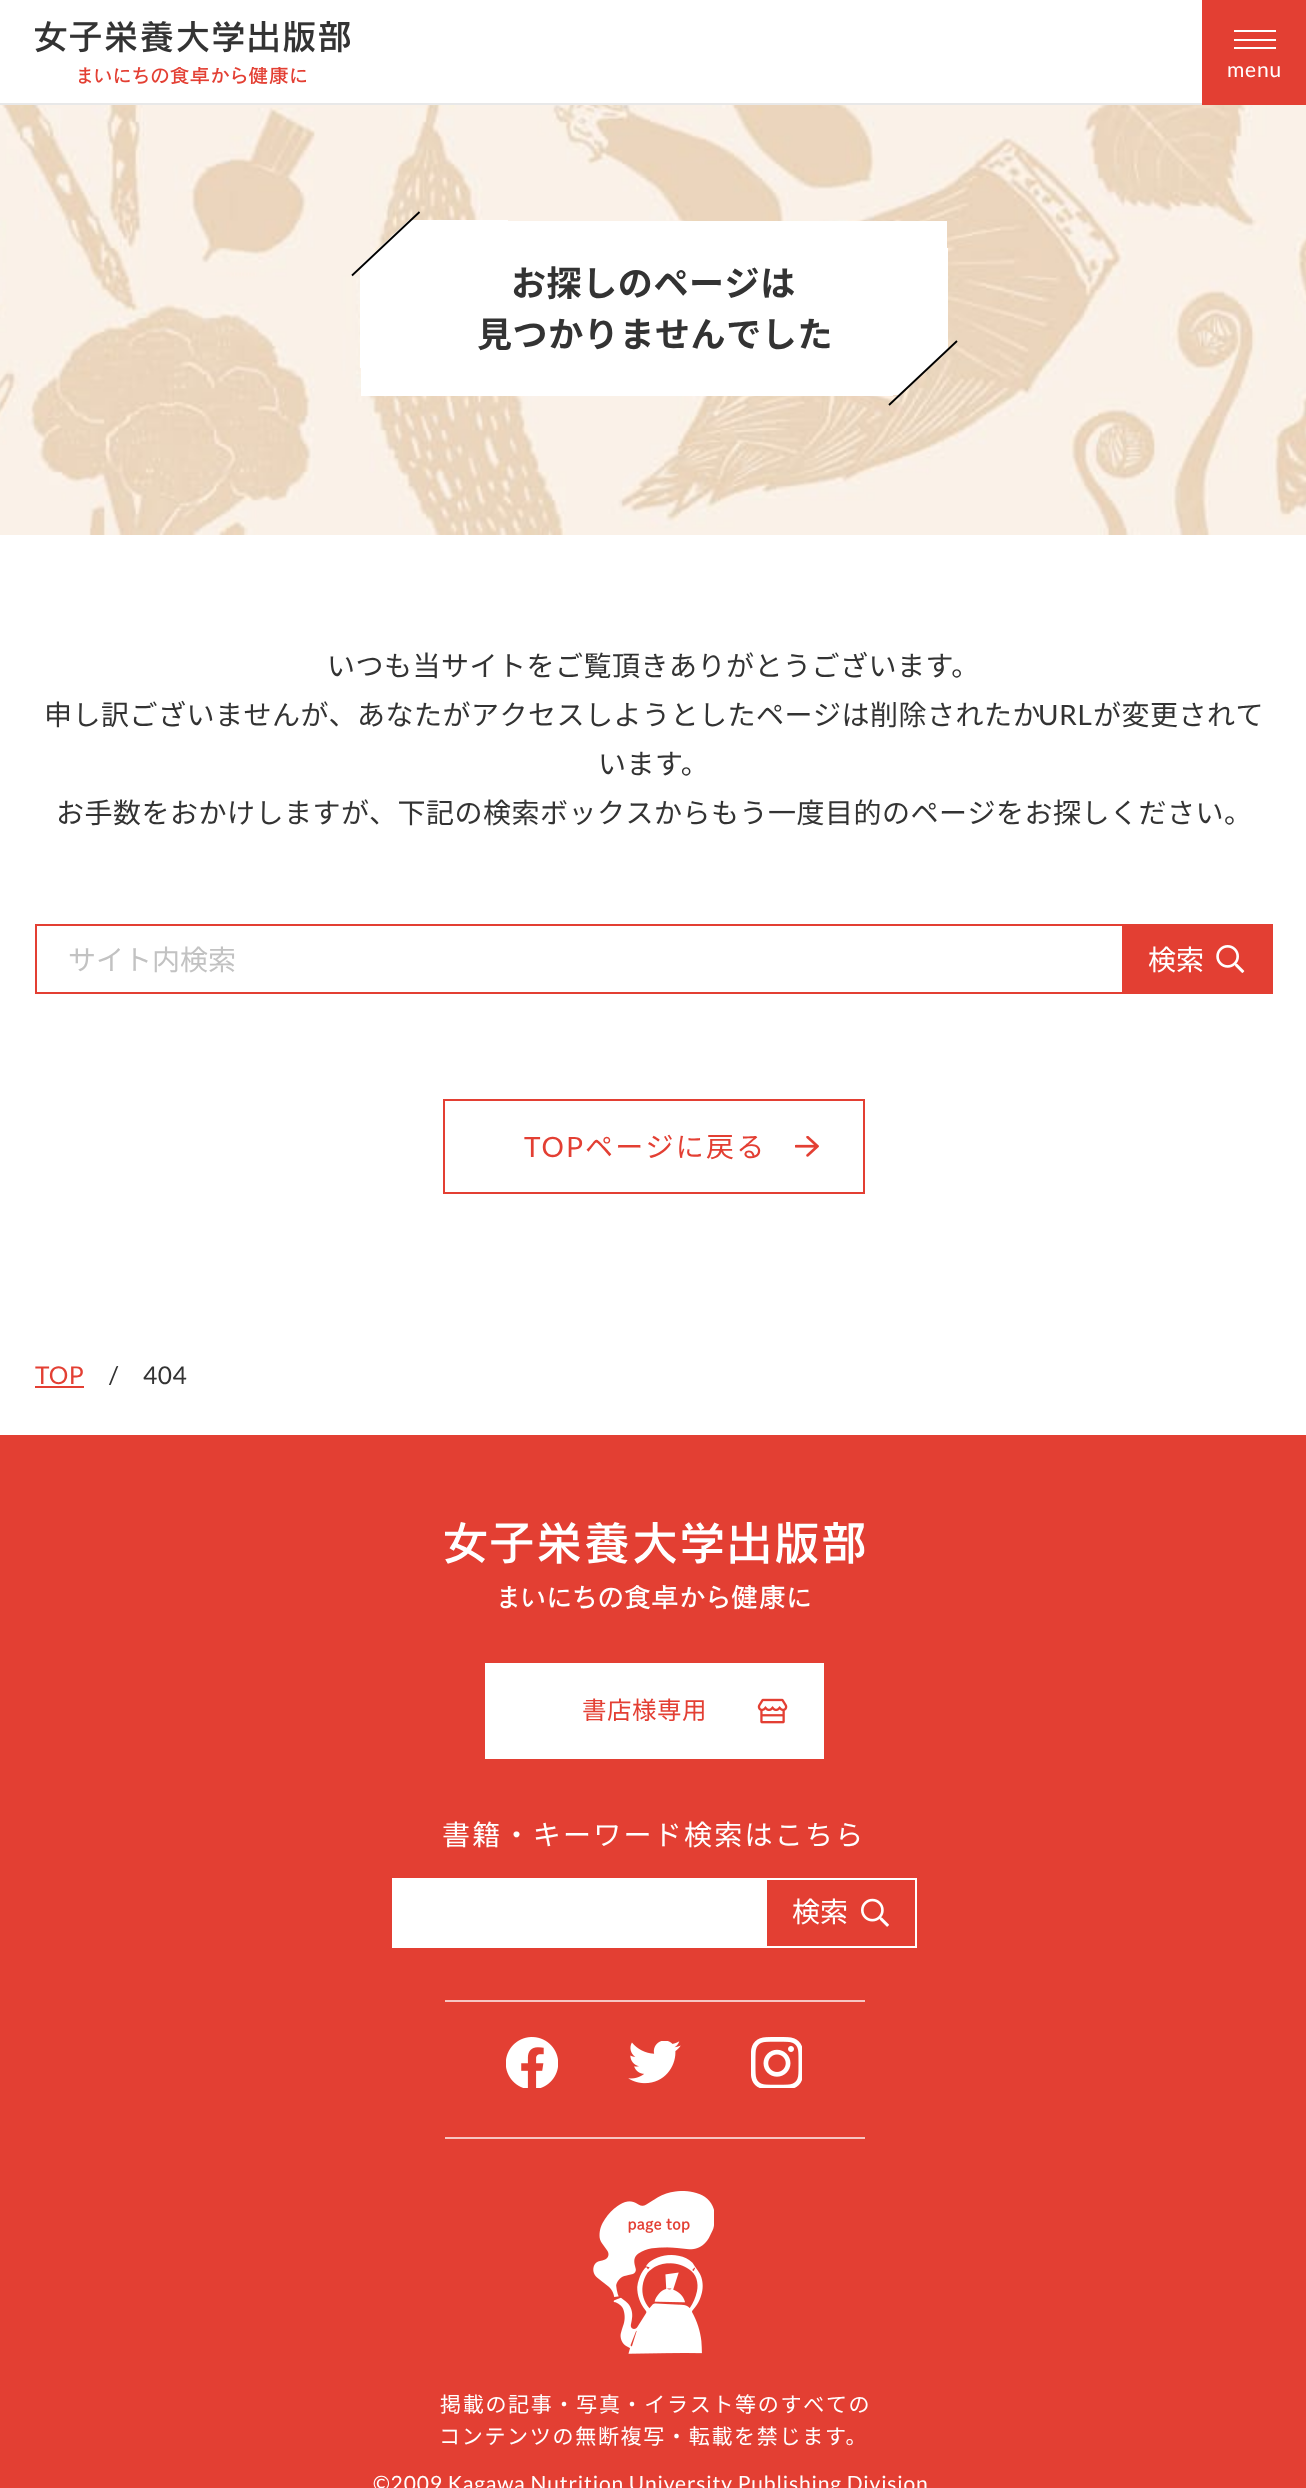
async function draw(canvas) {
  canvas.width = 1306;
  canvas.height = 2488;
  const ctx = canvas.getContext('2d');
  ctx.miterLimit = 4;
  ctx.fontKerning = 'normal';
  function label(s, x, y, font, color) {
    ctx.font = font;
    ctx.fillStyle = color;
    ctx.fillText(s, x, y);
  }
  function rect(x, y, w, h, color) {
    ctx.fillStyle = color;
    ctx.fillRect(x, y, w, h);
  }
  async function image(src, x, y, w, h) {
    const img = new Image();
    img.src = src;
    await img.decode();
    ctx.drawImage(img, x, y, w, h);
  }
  let gradient, path;

  rect(0, 0, 1306, 2488, '#fff');
  rect(0, 103, 1202, 2, '#e8e8e8');
  await image('assets/img1.png', 35, 21, 315, 32);
  await image('assets/img2.png', 79, 67, 227, 17);
  rect(1202, 0, 104, 105, '#e33f33');
  rect(1234, 39, 42, 2, '#fff');
  rect(1234, 30, 42, 2, '#fff');
  rect(1234, 47, 42, 2, '#fff');
  ctx.letterSpacing = '0.85px';
  label('menu', 1227, 77, '21px Lato', '#fff');
  await image('assets/img3.png', 0, 105, 1306, 430);
  path = new Path2D('M508 220V368H360V266L409 220Z');
  ctx.fill(path);
  path = new Path2D('M419.5 212L352 275.5');
  ctx.strokeStyle = '#000';
  ctx.lineWidth = 1.8;
  ctx.stroke(path);
  path = new Path2D('M948 350V248H800V395H900Z');
  ctx.fill(path);
  path = new Path2D('M957 341L889 405');
  ctx.stroke(path);
  gradient = ctx.createLinearGradient(463, 118, 844, 498);
  gradient.addColorStop(0.07, '#ffffff00');
  gradient.addColorStop(0.07, '#fff');
  gradient.addColorStop(0.93, '#fff');
  gradient.addColorStop(0.93, '#ffffff00');
  gradient.addColorStop(1, '#00000000');
  ctx.fillStyle = gradient;
  ctx.fillRect(361, 221, 586, 175);
  ctx.letterSpacing = '0.6px';
  label('お探しのページは', 511, 296, 'bold 35px Noto Sans JP', '#333');
  label('見つかりませんでした', 477, 347, 'bold 35px Noto Sans JP', '#333');
  ctx.letterSpacing = '0.5px';
  label('いつも当サイトをご覧頂きありがとうございます。', 327, 676, '28px Noto Sans JP', '#333');
  label('申し訳ございませんが、あなたがアクセスしようとしたページは削除されたか', 44, 725, '28px Noto Sans JP', '#333');
  label('URL', 1038, 725, '28px Lato', '#333');
  label('が変更されて', 1093, 725, '28px Noto Sans JP', '#333');
  label('います。', 598, 774, '28px Noto Sans JP', '#333');
  label('お手数をおかけしますが、下記の検索ボックスからもう一度目的のページをお探しください。', 56, 823, '28px Noto Sans JP', '#333');
  rect(35, 924, 1087, 2, '#e33f33');
  rect(35, 992, 1087, 2, '#e33f33');
  rect(35, 924, 2, 70, '#e33f33');
  ctx.letterSpacing = '0px';
  label('サイト内検索', 68, 970, '28px Noto Sans JP', '#c2c2c2');
  rect(1122, 924, 151, 70, '#e33f33');
  label('検索', 1148, 970, '28px Noto Sans JP', '#fff');
  await image('assets/img4.png', 1216, 945, 29, 28);
  ctx.strokeStyle = '#e33f33';
  ctx.lineWidth = 2;
  ctx.strokeRect(444, 1100, 420, 93);
  ctx.letterSpacing = '2.25px';
  label('TOP', 524, 1157, '28px Lato', '#e33f33');
  label('ページに戻る', 585, 1157, '28px Noto Sans JP', '#e33f33');
  await image('assets/img5.png', 795, 1136, 24, 21);
  ctx.letterSpacing = '0.5px';
  label('TOP', 35, 1384, '24.5px Lato', '#e33f33');
  rect(35, 1386, 49, 2, '#e33f33');
  label('/', 109, 1384, '24.5px Lato', '#333');
  label('404', 143, 1384, '24.5px Lato', '#333');
  rect(0, 1435, 1306, 1053, '#e33f33');
  await image('assets/img6.png', 445, 1522, 420, 88);
  rect(485, 1663, 339, 96, '#fff');
  label('書店様専用', 582, 1719, '24.5px Noto Sans JP', '#e33f33');
  await image('assets/img7.png', 757, 1698, 31, 26);
  ctx.letterSpacing = '2.25px';
  label('書籍・キーワード検索はこちら', 442, 1845, '28px Noto Sans JP', '#fff');
  rect(392, 1878, 375, 70, '#fff');
  rect(767, 1878, 150, 2, '#fff');
  rect(915, 1878, 2, 70, '#fff');
  rect(767, 1946, 150, 2, '#fff');
  ctx.letterSpacing = '0px';
  label('検索', 792, 1922, '28px Noto Sans JP', '#fff');
  await image('assets/img8.png', 861, 1898, 28, 29);
  rect(445, 2000, 420, 2, '#f7c5c2');
  rect(445, 2137, 420, 2, '#f7c5c2');
  await image('assets/img9.png', 506, 2037, 52, 51);
  await image('assets/img10.png', 628, 2041, 53, 43);
  await image('assets/img11.png', 751, 2037, 51, 51);
  await image('assets/img12.png', 593, 2191, 121, 163);
  ctx.letterSpacing = '1.7px';
  label('掲載の記事・写真・イラスト等のすべての', 440, 2412, '21px Noto Sans JP', '#fff');
  label('コンテンツの無断複写・転載を禁じます。', 439, 2444, '21px Noto Sans JP', '#fff');
  ctx.letterSpacing = '0.85px';
  label('©2009 Kagawa Nutrition University Publishing Division', 373, 2491, '21px Lato', '#fff');
}

draw(document.querySelector('canvas'));
